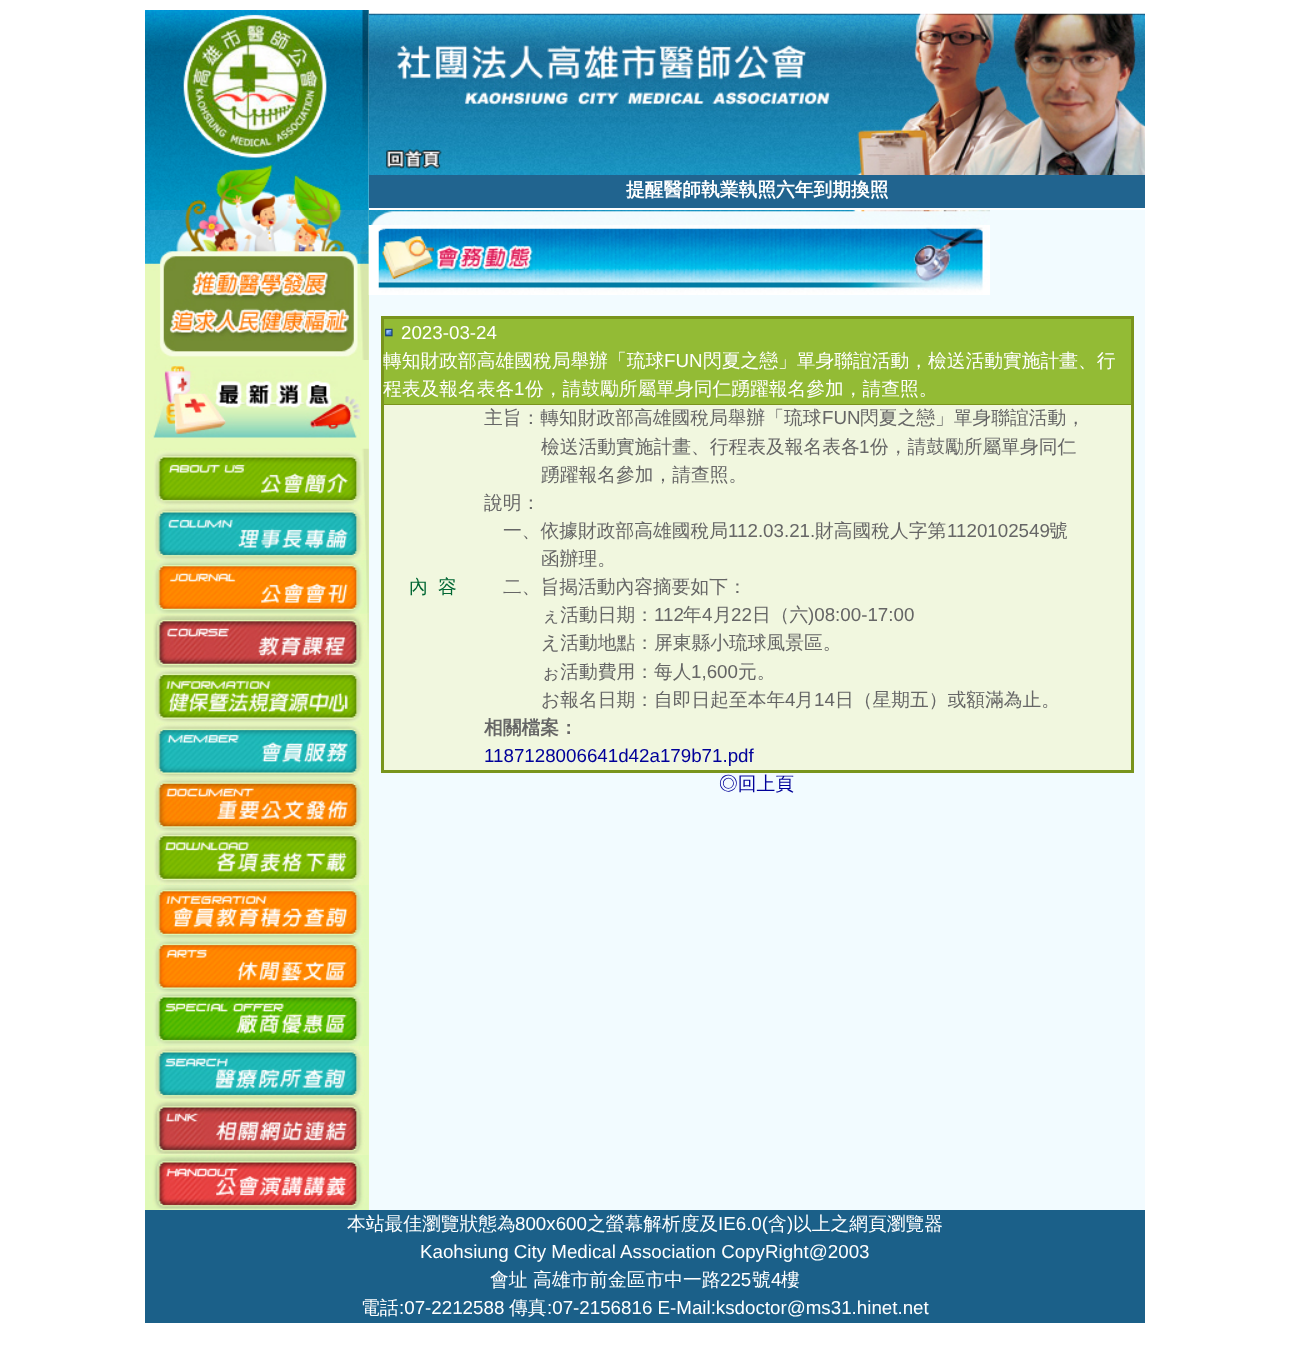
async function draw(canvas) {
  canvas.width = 1289;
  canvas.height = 1365;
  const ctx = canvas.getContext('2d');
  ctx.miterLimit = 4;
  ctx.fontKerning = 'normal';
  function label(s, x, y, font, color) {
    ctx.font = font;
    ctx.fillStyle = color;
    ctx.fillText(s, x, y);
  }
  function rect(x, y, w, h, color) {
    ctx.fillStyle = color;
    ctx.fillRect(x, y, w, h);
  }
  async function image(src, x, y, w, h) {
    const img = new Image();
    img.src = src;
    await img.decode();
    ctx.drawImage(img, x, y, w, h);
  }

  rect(0, 0, 1289, 1365, '#fff');
  await image('assets/img1.png', 145, 10, 224, 200);
  await image('assets/img2.png', 368, 13, 777, 162);
  rect(369, 175, 776, 33, '#21648f');
  label('提醒醫師執業執照六年到期換照', 626, 196, 'bold 18.75px WenQuanYi Zen Hei', '#fff');
  rect(145, 210, 224, 1000, '#e6f9b9');
  await image('assets/img3.png', 145, 210, 224, 150);
  await image('assets/img4.png', 148, 365, 213, 75);
  await image('assets/img5.png', 154, 448, 215, 57);
  await image('assets/img6.png', 154, 505, 215, 55);
  await image('assets/img7.png', 145, 560, 224, 54);
  await image('assets/img8.png', 153, 614, 216, 54);
  await image('assets/img9.png', 154, 669, 208, 54);
  await image('assets/img10.png', 154, 723, 210, 55);
  await image('assets/img11.png', 154, 778, 211, 53);
  await image('assets/img12.png', 154, 831, 211, 54);
  await image('assets/img13.png', 145, 885, 224, 54);
  await image('assets/img14.png', 145, 939, 224, 54);
  await image('assets/img15.png', 145, 993, 224, 53);
  await image('assets/img16.png', 154, 1046, 211, 53);
  await image('assets/img17.png', 153, 1100, 212, 55);
  await image('assets/img18.png', 145, 1155, 224, 55);
  rect(369, 210, 776, 1000, '#f2fbff');
  await image('assets/img19.png', 368, 210, 622, 15);
  await image('assets/img20.png', 368, 225, 622, 70);
  rect(381, 316, 753, 457, '#79941d');
  rect(384, 319, 747, 85, '#93bb35');
  await image('assets/img21.png', 384, 328, 9, 9);
  label('2023-03-24', 401, 339, '18.75px Liberation Sans', '#fff');
  label('轉知財政部高雄國稅局舉辦「琉球', 383, 367, '500 18.75px WenQuanYi Zen Hei', '#fff');
  label('FUN', 664, 367, '18.75px Liberation Sans', '#fff');
  label('閃夏之戀」單身聯誼活動，檢送活動實施計畫、行', 703, 367, '500 18.75px WenQuanYi Zen Hei', '#fff');
  label('程表及報名表各', 383, 395, '500 18.75px WenQuanYi Zen Hei', '#fff');
  label('1', 514, 395, '18.75px Liberation Sans', '#fff');
  label('份，請鼓勵所屬單身同仁踴躍報名參加，請查照。', 525, 395, '500 18.75px WenQuanYi Zen Hei', '#fff');
  rect(384, 405, 747, 365, '#f1f7df');
  label('內', 409, 593, '500 18.75px WenQuanYi Zen Hei', '#063');
  label('容', 438, 593, '500 18.75px WenQuanYi Zen Hei', '#063');
  label('主旨：轉知財政部高雄國稅局舉辦「琉球', 484, 424, '500 18.75px WenQuanYi Zen Hei', '#666');
  label('FUN', 822, 424, '18.75px Liberation Sans', '#666');
  label('閃夏之戀」單身聯誼活動，', 860, 424, '500 18.75px WenQuanYi Zen Hei', '#666');
  label('檢送活動實施計畫、行程表及報名表各', 541, 453, '500 18.75px WenQuanYi Zen Hei', '#666');
  label('1', 859, 453, '18.75px Liberation Sans', '#666');
  label('份，請鼓勵所屬單身同仁', 870, 453, '500 18.75px WenQuanYi Zen Hei', '#666');
  label('踴躍報名參加，請查照。', 541, 481, '500 18.75px WenQuanYi Zen Hei', '#666');
  label('說明：', 484, 509, '500 18.75px WenQuanYi Zen Hei', '#666');
  label('一、依據財政部高雄國稅局', 503, 537, '500 18.75px WenQuanYi Zen Hei', '#666');
  label('112.03.21.', 728, 537, '18.75px Liberation Sans', '#666');
  label('財高國稅人字第', 815, 537, '500 18.75px WenQuanYi Zen Hei', '#666');
  label('1120102549', 947, 537, '18.75px Liberation Sans', '#666');
  label('號', 1049, 537, '500 18.75px WenQuanYi Zen Hei', '#666');
  label('函辦理。', 541, 565, '500 18.75px WenQuanYi Zen Hei', '#666');
  label('二、旨揭活動內容摘要如下：', 503, 593, '500 18.75px WenQuanYi Zen Hei', '#666');
  label('ぇ活動日期：', 541, 621, '500 18.75px WenQuanYi Zen Hei', '#666');
  label('112', 654, 621, '18.75px Liberation Sans', '#666');
  label('年', 683, 621, '500 18.75px WenQuanYi Zen Hei', '#666');
  label('4', 702, 621, '18.75px Liberation Sans', '#666');
  label('月', 713, 621, '500 18.75px WenQuanYi Zen Hei', '#666');
  label('22', 731, 621, '18.75px Liberation Sans', '#666');
  label('日（六', 752, 621, '500 18.75px WenQuanYi Zen Hei', '#666');
  label(')08:00-17:00', 808, 621, '18.75px Liberation Sans', '#666');
  label('え活動地點：屏東縣小琉球風景區。', 541, 649, '500 18.75px WenQuanYi Zen Hei', '#666');
  label('ぉ活動費用：每人', 541, 678, '500 18.75px WenQuanYi Zen Hei', '#666');
  label('1,600', 691, 678, '18.75px Liberation Sans', '#666');
  label('元。', 738, 678, '500 18.75px WenQuanYi Zen Hei', '#666');
  label('お報名日期：自即日起至本年', 541, 706, '500 18.75px WenQuanYi Zen Hei', '#666');
  label('4', 785, 706, '18.75px Liberation Sans', '#666');
  label('月', 795, 706, '500 18.75px WenQuanYi Zen Hei', '#666');
  label('14', 814, 706, '18.75px Liberation Sans', '#666');
  label('日（星期五）或額滿為止。', 835, 706, '500 18.75px WenQuanYi Zen Hei', '#666');
  label('相關檔案：', 484, 734, 'bold 18.75px WenQuanYi Zen Hei', '#666');
  label('1187128006641d42a179b71.pdf', 484, 762, '18.75px Liberation Sans', '#009');
  label('◎回上頁', 719, 790, '500 18.75px WenQuanYi Zen Hei', '#009');
  rect(145, 1210, 1000, 113, '#1b6089');
  label('本站最佳瀏覽狀態為', 347, 1230, '500 18.75px WenQuanYi Zen Hei', '#fff');
  label('800x600', 515, 1230, '18.75px Liberation Sans', '#fff');
  label('之螢幕解析度及', 587, 1230, '500 18.75px WenQuanYi Zen Hei', '#fff');
  label('IE6.0(', 718, 1230, '18.75px Liberation Sans', '#fff');
  label('含', 768, 1230, '500 18.75px WenQuanYi Zen Hei', '#fff');
  label(')', 787, 1230, '18.75px Liberation Sans', '#fff');
  label('以上之網頁瀏覽器', 793, 1230, '500 18.75px WenQuanYi Zen Hei', '#fff');
  label('Kaohsiung City Medical Association CopyRight@2003', 420, 1258, '18.75px Liberation Sans', '#fff');
  label('會址 高雄市前金區市中一路', 490, 1286, '500 18.75px WenQuanYi Zen Hei', '#fff');
  label('225', 720, 1286, '18.75px Liberation Sans', '#fff');
  label('號', 752, 1286, '500 18.75px WenQuanYi Zen Hei', '#fff');
  label('4', 771, 1286, '18.75px Liberation Sans', '#fff');
  label('樓', 781, 1286, '500 18.75px WenQuanYi Zen Hei', '#fff');
  label('電話', 361, 1314, '500 18.75px WenQuanYi Zen Hei', '#fff');
  label(':07-2212588', 399, 1314, '18.75px Liberation Sans', '#fff');
  label('傳真', 509, 1314, '500 18.75px WenQuanYi Zen Hei', '#fff');
  label(':07-2156816 E-Mail:ksdoctor@ms31.hinet.net', 547, 1314, '18.75px Liberation Sans', '#fff');
}

draw(document.querySelector('canvas'));
